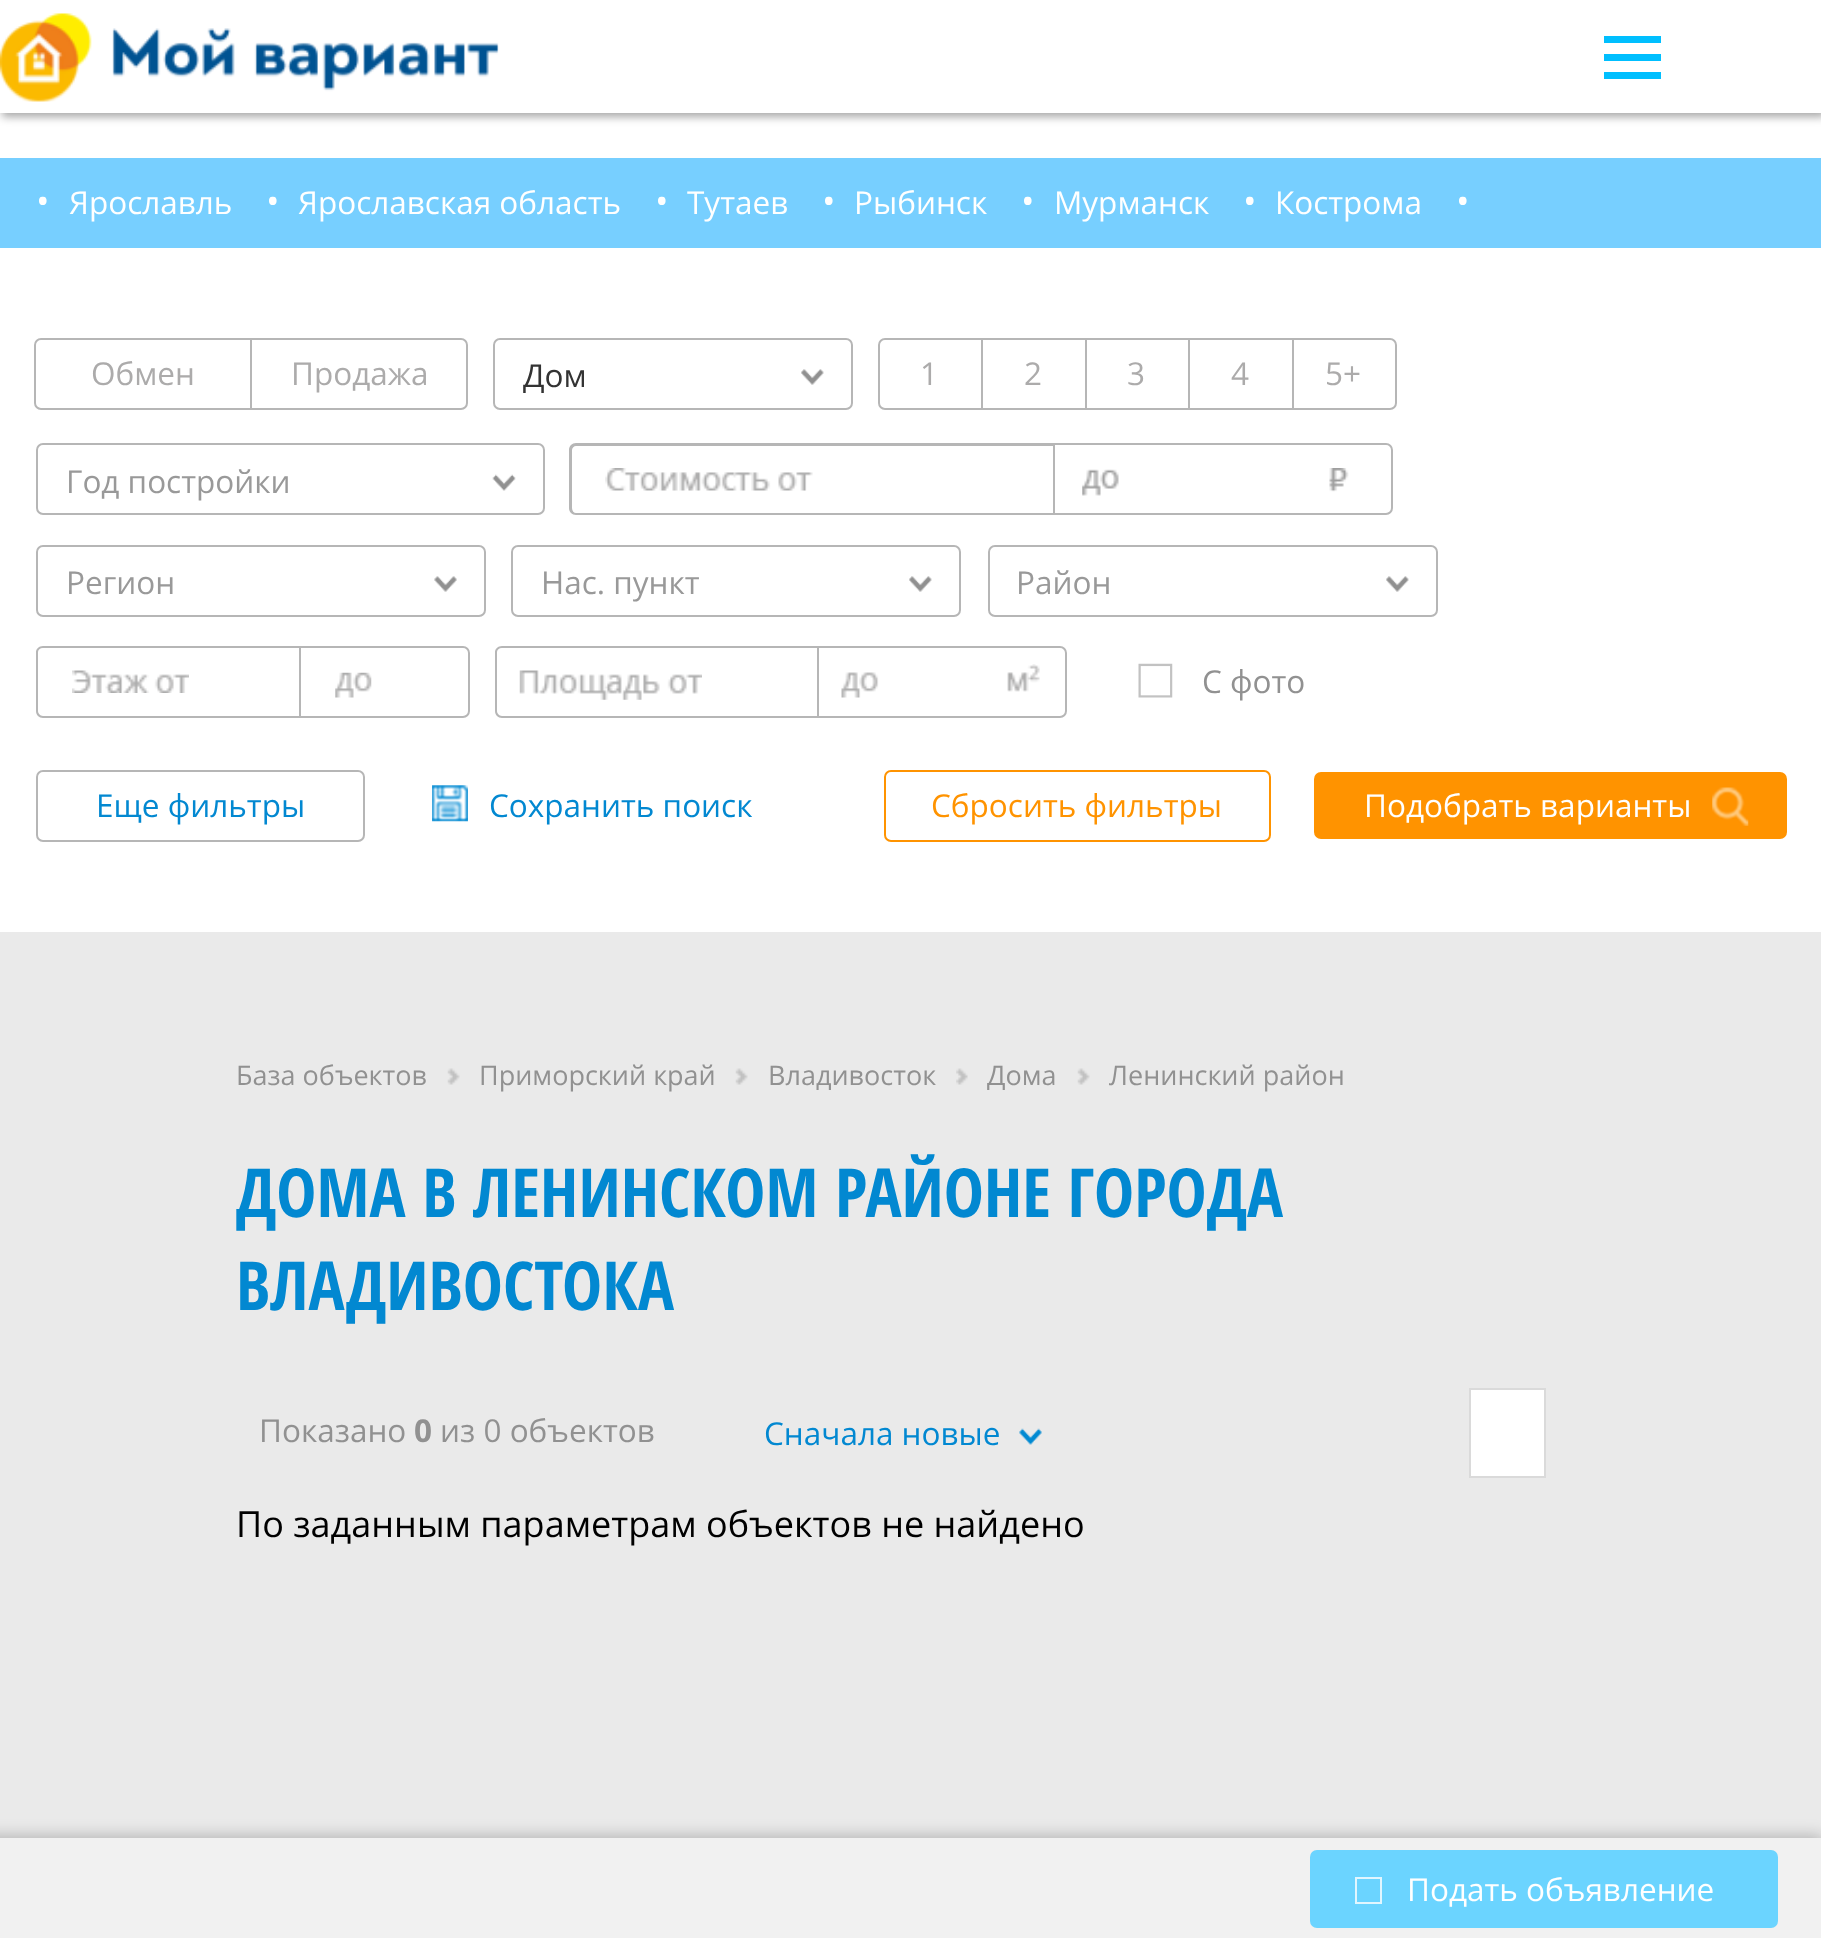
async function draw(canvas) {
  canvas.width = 1821;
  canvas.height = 1938;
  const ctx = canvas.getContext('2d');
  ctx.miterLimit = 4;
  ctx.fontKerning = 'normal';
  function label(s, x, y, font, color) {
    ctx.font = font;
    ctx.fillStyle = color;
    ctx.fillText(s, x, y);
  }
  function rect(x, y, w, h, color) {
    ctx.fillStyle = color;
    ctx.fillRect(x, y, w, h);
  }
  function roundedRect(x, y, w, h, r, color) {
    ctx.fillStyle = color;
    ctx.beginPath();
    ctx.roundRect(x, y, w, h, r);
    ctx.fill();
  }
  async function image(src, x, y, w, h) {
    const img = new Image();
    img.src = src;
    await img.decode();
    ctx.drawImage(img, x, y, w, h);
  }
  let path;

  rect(0, 0, 1821, 1938, '#fff');
  rect(0, 158, 1821, 90, '#77cfff');
  label('•', 36, 214, '36px Open Sans', '#fff');
  label('Ярославль', 69, 214, '31.5px Open Sans', '#fff');
  label('•', 266, 214, '36px Open Sans', '#fff');
  label('Ярославская область', 298, 214, '31.5px Open Sans', '#fff');
  label('•', 655, 214, '36px Open Sans', '#fff');
  label('Тутаев', 687, 214, '31.5px Open Sans', '#fff');
  label('•', 822, 214, '36px Open Sans', '#fff');
  label('Рыбинск', 854, 214, '31.5px Open Sans', '#fff');
  label('•', 1021, 214, '36px Open Sans', '#fff');
  label('Мурманск', 1054, 214, '31.5px Open Sans', '#fff');
  label('•', 1243, 214, '36px Open Sans', '#fff');
  label('Кострома', 1275, 214, '31.5px Open Sans', '#fff');
  label('•', 1456, 214, '36px Open Sans', '#fff');
  ctx.beginPath();
  ctx.roundRect(35, 339, 216, 70, [6, 0, 0, 6]);
  ctx.strokeStyle = '#b6b6b6';
  ctx.lineWidth = 2;
  ctx.stroke();
  label('Обмен', 91, 385, '31.5px Open Sans', '#acabab');
  ctx.fillStyle = '#fff';
  ctx.beginPath();
  ctx.roundRect(251, 339, 216, 70, [0, 6, 6, 0]);
  ctx.fill();
  ctx.stroke();
  label('Продажа', 291, 385, '31.5px Open Sans', '#acabab');
  ctx.beginPath();
  ctx.roundRect(494, 339, 358, 70, 6);
  ctx.stroke();
  label('Дом', 523, 387, '31.5px Open Sans', '#333');
  await image('assets/img1.png', 801, 369, 23, 16);
  ctx.beginPath();
  ctx.roundRect(879, 339, 103, 70, [6, 0, 0, 6]);
  ctx.stroke();
  label('1', 920, 385, '31.5px Open Sans', '#acabab');
  ctx.strokeRect(982, 339, 104, 70);
  label('2', 1024, 385, '31.5px Open Sans', '#acabab');
  ctx.strokeRect(1086, 339, 103, 70);
  label('3', 1127, 385, '31.5px Open Sans', '#acabab');
  ctx.strokeRect(1189, 339, 104, 70);
  label('4', 1231, 385, '31.5px Open Sans', '#acabab');
  ctx.fillStyle = '#fff';
  ctx.beginPath();
  ctx.roundRect(1293, 339, 103, 70, [0, 6, 6, 0]);
  ctx.fill();
  ctx.stroke();
  label('5+', 1325, 385, '31.5px Open Sans', '#acabab');
  ctx.beginPath();
  ctx.roundRect(37, 444, 507, 70, 6);
  ctx.stroke();
  label('Год постройки', 66, 493, '31.5px Open Sans', '#999');
  await image('assets/img2.png', 492, 474, 24, 17);
  await image('assets/img3.png', 605, 468, 208, 23);
  ctx.fillStyle = '#b6b6b6';
  path = new Path2D('M576 443H1053V515H576C572 515 569 512 569 508V450C569 446 572 443 576 443ZM576 446H1053V513H576C574 513 572 511 572 508V450C572 448 574 446 576 446Z');
  ctx.fill(path, 'evenodd');
  await image('assets/img4.png', 1082, 468, 267, 28);
  ctx.beginPath();
  ctx.roundRect(1054, 444, 338, 70, [0, 6, 6, 0]);
  ctx.stroke();
  ctx.beginPath();
  ctx.roundRect(37, 546, 448, 70, 6);
  ctx.stroke();
  label('Регион', 66, 594, '31.5px Open Sans', '#999');
  await image('assets/img5.png', 434, 576, 23, 16);
  ctx.beginPath();
  ctx.roundRect(512, 546, 448, 70, 6);
  ctx.stroke();
  label('Нас. пункт', 541, 594, '31.5px Open Sans', '#999');
  await image('assets/img1.png', 909, 576, 23, 16);
  ctx.beginPath();
  ctx.roundRect(989, 546, 448, 70, 6);
  ctx.stroke();
  label('Район', 1016, 594, '31.5px Open Sans', '#999');
  await image('assets/img1.png', 1386, 576, 23, 16);
  await image('assets/img6.png', 72, 670, 117, 23);
  ctx.fillStyle = '#b6b6b6';
  path = new Path2D('M43 646H299V718H43C39 718 36 715 36 711V652C36 649 39 646 43 646ZM43 648H299V716H43C40 716 38 713 38 711V652C38 650 40 648 43 648Z');
  ctx.fill(path, 'evenodd');
  await image('assets/img7.png', 335, 672, 37, 26);
  ctx.beginPath();
  ctx.roundRect(300, 647, 169, 70, [0, 6, 6, 0]);
  ctx.stroke();
  await image('assets/img8.png', 519, 670, 183, 30);
  path = new Path2D('M502 646H817V718H502C498 718 495 715 495 711V652C495 649 498 646 502 646ZM502 648H817V716H502C499 716 497 713 497 711V652C497 650 499 648 502 648Z');
  ctx.fill(path, 'evenodd');
  await image('assets/img9.png', 841, 664, 199, 34);
  ctx.beginPath();
  ctx.roundRect(818, 647, 248, 70, [0, 6, 6, 0]);
  ctx.stroke();
  await image('assets/img10.png', 1138, 663, 35, 35);
  label('С фото', 1202, 693, '31.5px Open Sans', '#919191');
  ctx.beginPath();
  ctx.roundRect(37, 771, 327, 70, 6);
  ctx.stroke();
  label('Еще фильтры', 96, 817, '31.5px Open Sans', '#0288d1');
  await image('assets/img11.png', 432, 785, 36, 37);
  label('Сохранить поиск', 489, 817, '31.5px Open Sans', '#0288d1');
  ctx.beginPath();
  ctx.roundRect(885, 771, 385, 70, 6);
  ctx.strokeStyle = '#ff9300';
  ctx.stroke();
  label('Сбросить фильтры', 931, 817, '31.5px Open Sans', '#ff9300');
  roundedRect(1314, 772, 473, 67, 7, '#ff9300');
  await image('assets/img12.png', 1712, 787, 37, 39);
  label('Подобрать варианты', 1364, 817, '31.5px Open Sans', '#fff');
  rect(0, 932, 1821, 906, '#eaeaea');
  await image('assets/img13.png', 447, 1068, 13, 17);
  label('База объектов', 236, 1085, '27px Open Sans', '#919191');
  await image('assets/img14.png', 735, 1068, 13, 17);
  label('Приморский край', 479, 1085, '27px Open Sans', '#919191');
  await image('assets/img15.png', 956, 1068, 12, 17);
  label('Владивосток', 768, 1085, '27px Open Sans', '#919191');
  await image('assets/img14.png', 1077, 1068, 13, 17);
  label('Дома', 987, 1085, '27px Open Sans', '#919191');
  label('Ленинский район', 1109, 1085, '27px Open Sans', '#919191');
  label('ДОМА В ЛЕНИНСКОМ РАЙОНЕ ГОРОДА', 236, 1217, 'bold 67.5px Open Sans Condensed', '#0288d1');
  label('ВЛАДИВОСТОКА', 236, 1310, 'bold 67.5px Open Sans Condensed', '#0288d1');
  label('Показано', 259, 1442, '31.5px Open Sans', '#919191');
  label('0', 414, 1442, 'bold 31.5px Open Sans', '#919191');
  label('из 0 объектов', 440, 1442, '31.5px Open Sans', '#919191');
  label('Сначала новые', 764, 1445, '31.5px Open Sans', '#0288d1');
  await image('assets/img16.png', 1019, 1428, 23, 17);
  ctx.fillStyle = '#fff';
  ctx.beginPath();
  ctx.rect(1470, 1389, 75, 88);
  ctx.fill();
  ctx.strokeStyle = '#dadada';
  ctx.stroke();
  label('По заданным параметрам объектов не найдено', 236, 1537, '36px Open Sans', '#000');
  ctx.fillStyle = '#00000057';
  ctx.filter = 'blur(4.5px)';
  ctx.beginPath();
  ctx.rect(2, 5, 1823, 112);
  ctx.fill();
  ctx.filter = 'none';
  rect(0, 0, 1821, 113, '#fff');
  await image('assets/img17.png', 0, 13, 499, 89);
  rect(1604, 36, 57, 7, '#00bfff');
  rect(1604, 54, 57, 7, '#00bfff');
  rect(1604, 72, 57, 7, '#00bfff');
  ctx.fillStyle = '#0000003d';
  ctx.filter = 'blur(8px)';
  ctx.beginPath();
  ctx.rect(-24, 1836, 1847, 101);
  ctx.fill();
  ctx.filter = 'none';
  rect(0, 1838, 1821, 100, '#f1f1f1');
  roundedRect(1310, 1850, 468, 78, 7, '#6bd4ff');
  ctx.strokeStyle = '#e1f6ff';
  ctx.strokeRect(1356, 1878, 25, 25);
  label('Подать объявление', 1407, 1901, '31.5px Open Sans', '#fff');
}

draw(document.querySelector('canvas'));
